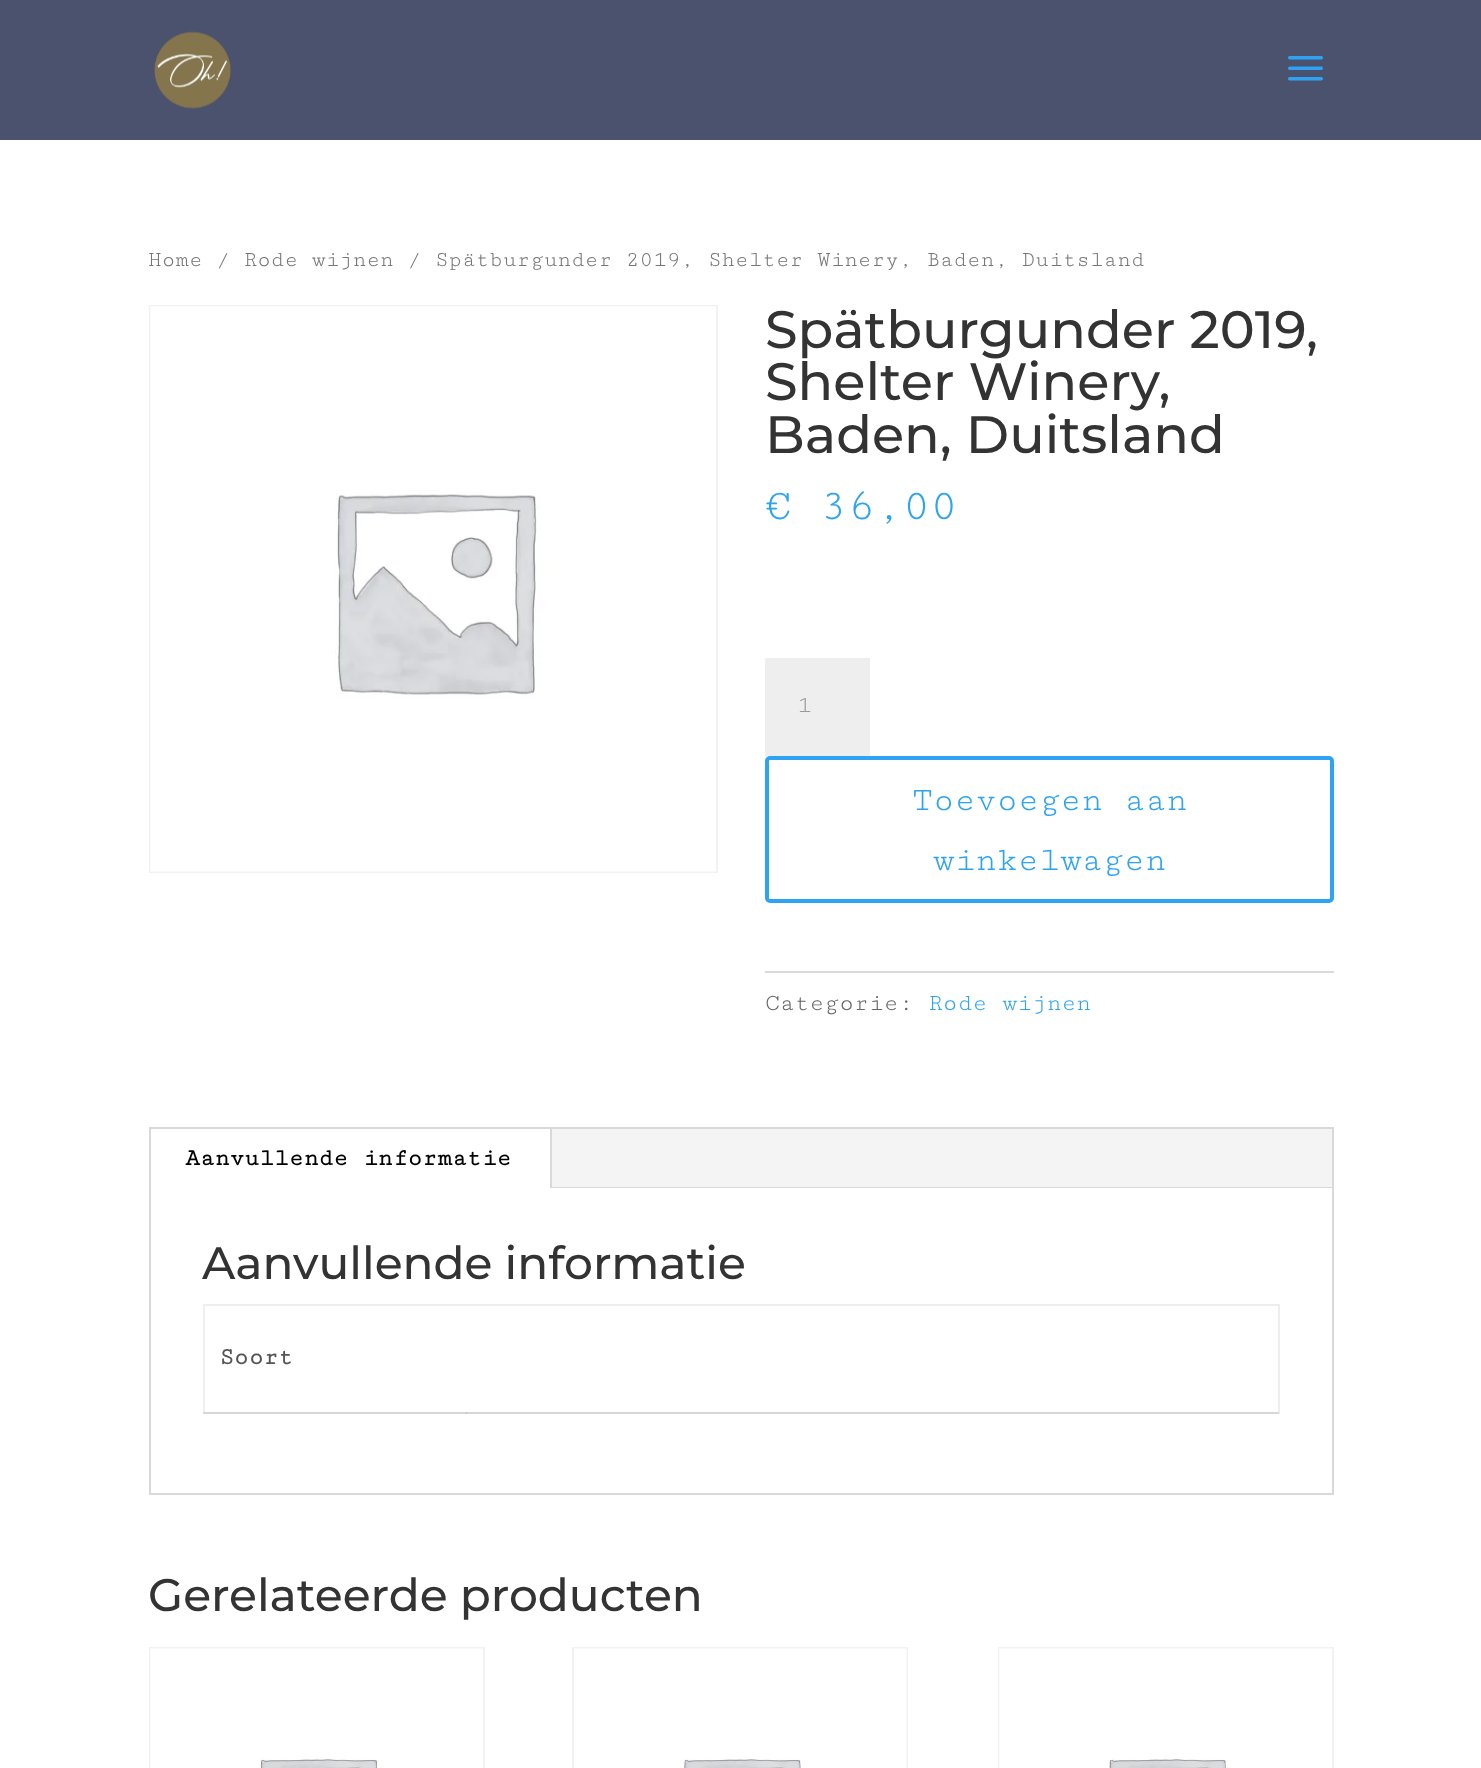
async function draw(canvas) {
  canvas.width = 1481;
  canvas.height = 1768;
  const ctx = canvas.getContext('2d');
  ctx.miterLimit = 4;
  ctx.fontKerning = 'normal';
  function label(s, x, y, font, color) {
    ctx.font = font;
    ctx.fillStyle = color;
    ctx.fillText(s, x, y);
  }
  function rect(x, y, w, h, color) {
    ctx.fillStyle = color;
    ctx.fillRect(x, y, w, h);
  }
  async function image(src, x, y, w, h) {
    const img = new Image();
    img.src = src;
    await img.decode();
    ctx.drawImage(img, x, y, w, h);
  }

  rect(0, 0, 1481, 1768, '#fff');
  rect(0, 0, 1481, 140, '#4b526e');
  await image('assets/img1.png', 154, 31, 77, 78);
  await image('assets/img2.png', 1288, 56, 35, 25);
  label('Home / Rode wijnen / Spätburgunder 2019, Shelter Winery, Baden, Duitsland', 148, 266, '22.55px Cutive Mono', '#767676');
  ctx.strokeStyle = '#f2f2f2';
  ctx.lineWidth = 2;
  ctx.strokeRect(150, 306, 567, 566);
  await image('assets/img3.png', 150, 306, 566, 566);
  label('Spätburgunder 2019,', 765, 348, '100 52.5px Montserrat', '#333');
  label('Shelter Winery,', 765, 400, '100 52.5px Montserrat', '#333');
  label('Baden, Duitsland', 765, 453, '100 52.5px Montserrat', '#333');
  label('€ 36,00', 765, 519, '45.5px Cutive Mono', '#2ea3f2');
  rect(765, 658, 105, 98, '#eee');
  label('1', 797, 712, '24.5px Cutive Mono', '#999');
  ctx.beginPath();
  ctx.roundRect(767, 758, 565, 143, 3);
  ctx.strokeStyle = '#2ea3f2';
  ctx.lineWidth = 4;
  ctx.stroke();
  label('Toevoegen aan', 912, 810, '35px Cutive Mono', '#2ea3f2');
  label('winkelwagen', 933, 870, '35px Cutive Mono', '#2ea3f2');
  rect(765, 971, 569, 2, '#dadada');
  label('Categorie:', 765, 1010, '24.5px Cutive Mono', '#666');
  label('Rode wijnen', 928, 1010, '24.5px Cutive Mono', '#2ea3f2');
  ctx.strokeStyle = '#d9d9d9';
  ctx.lineWidth = 2;
  ctx.strokeRect(150, 1128, 1183, 366);
  rect(552, 1129, 780, 58, '#f4f4f4');
  rect(550, 1129, 2, 59, '#d9d9d9');
  label('Aanvullende informatie', 185, 1165, 'bold 24.5px Cutive Mono', '#000');
  rect(552, 1187, 780, 1, '#d9d9d9');
  label('Aanvullende informatie', 202, 1279, '100 45.5px Montserrat', '#333');
  rect(203, 1304, 1076, 2, '#eee');
  rect(1278, 1304, 2, 110, '#eee');
  rect(203, 1412, 1076, 2, '#d6d6d6');
  rect(203, 1304, 2, 110, '#eee');
  rect(203, 1412, 2, 2, '#d6d6d6');
  label('Soort', 219, 1364, 'bold 24.5px Cutive Mono', '#555');
  rect(466, 1412, 1, 2, '#c1c1c1');
  label('Gerelateerde producten', 148, 1611, '100 45.5px Montserrat', '#333');
  ctx.strokeStyle = '#f2f2f2';
  ctx.strokeRect(150, 1648, 334, 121);
  await image('assets/img4.png', 150, 1648, 333, 120);
  ctx.strokeRect(573, 1648, 334, 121);
  await image('assets/img5.png', 574, 1648, 333, 120);
  ctx.strokeRect(999, 1648, 334, 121);
  await image('assets/img6.png', 999, 1648, 333, 120);
}

draw(document.querySelector('canvas'));
